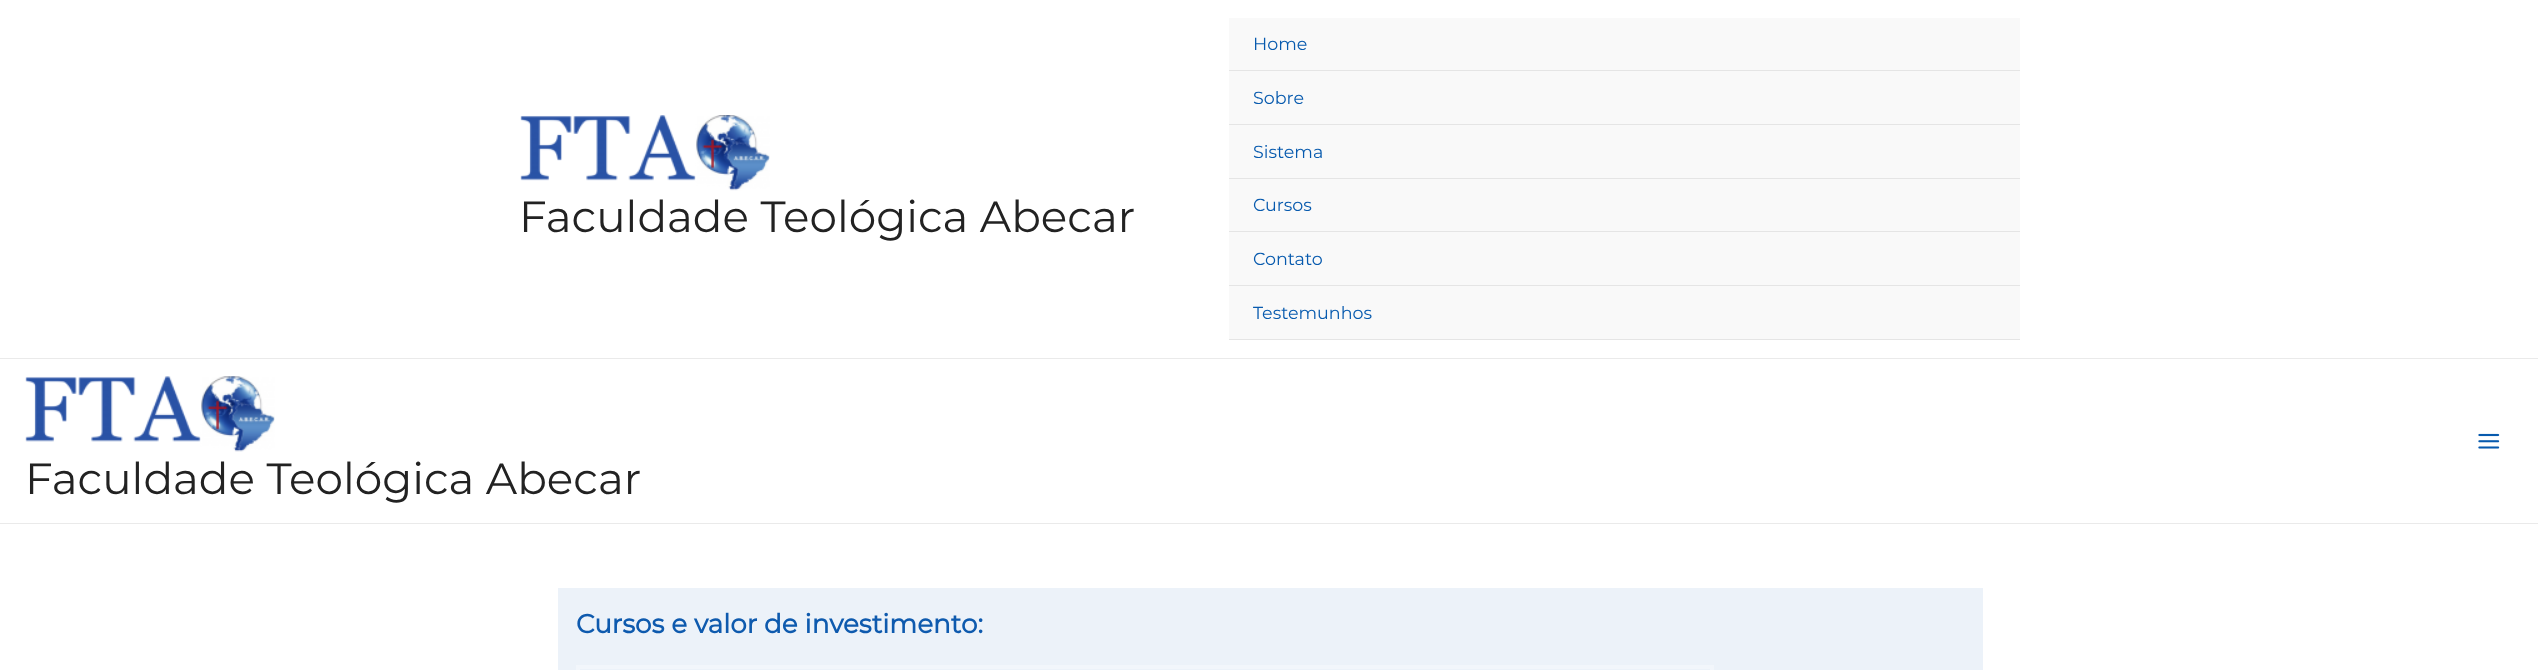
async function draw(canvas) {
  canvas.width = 2538;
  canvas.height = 670;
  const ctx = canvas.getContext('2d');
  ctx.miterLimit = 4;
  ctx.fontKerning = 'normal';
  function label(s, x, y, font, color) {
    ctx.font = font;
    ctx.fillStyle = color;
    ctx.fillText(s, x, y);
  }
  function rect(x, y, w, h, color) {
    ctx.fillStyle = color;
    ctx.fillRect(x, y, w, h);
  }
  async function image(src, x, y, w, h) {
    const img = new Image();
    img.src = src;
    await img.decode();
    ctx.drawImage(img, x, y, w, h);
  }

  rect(0, 0, 2538, 670, '#fff');
  rect(0, 358, 2538, 1, '#eaeaea');
  await image('assets/img1.png', 520, 115, 250, 76);
  label('Faculdade Teológica Abecar', 519, 232, '43.75px Montserrat', '#222');
  rect(1229, 18, 791, 321, '#f9f9f9');
  rect(1229, 70, 791, 1, '#e5e5e5');
  label('Home', 1253, 50, '17.5px Montserrat', '#075aae');
  rect(1229, 124, 791, 1, '#e5e5e5');
  label('Sobre', 1253, 104, '17.5px Montserrat', '#075aae');
  rect(1229, 178, 791, 1, '#e5e5e5');
  label('Sistema', 1253, 158, '17.5px Montserrat', '#075aae');
  rect(1229, 231, 791, 1, '#e5e5e5');
  label('Cursos', 1253, 211, '17.5px Montserrat', '#075aae');
  rect(1229, 285, 791, 1, '#e5e5e5');
  label('Contato', 1253, 265, '17.5px Montserrat', '#075aae');
  rect(1229, 339, 791, 1, '#e5e5e5');
  label('Testemunhos', 1253, 319, '17.5px Montserrat', '#075aae');
  rect(0, 523, 2538, 1, '#eaeaea');
  await image('assets/img2.png', 2478, 433, 22, 16);
  await image('assets/img3.png', 25, 376, 250, 76);
  label('Faculdade Teológica Abecar', 25, 494, '43.75px Montserrat', '#222');
  rect(558, 588, 1425, 82, '#ecf2f9');
  label('Cursos e valor de investimento:', 576, 633, 'bold 26.25px Montserrat', '#0e5aae');
  ctx.strokeStyle = '#f2f6fb';
  ctx.lineWidth = 4;
  ctx.strokeRect(578, 667, 1134, 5);
}

draw(document.querySelector('canvas'));
